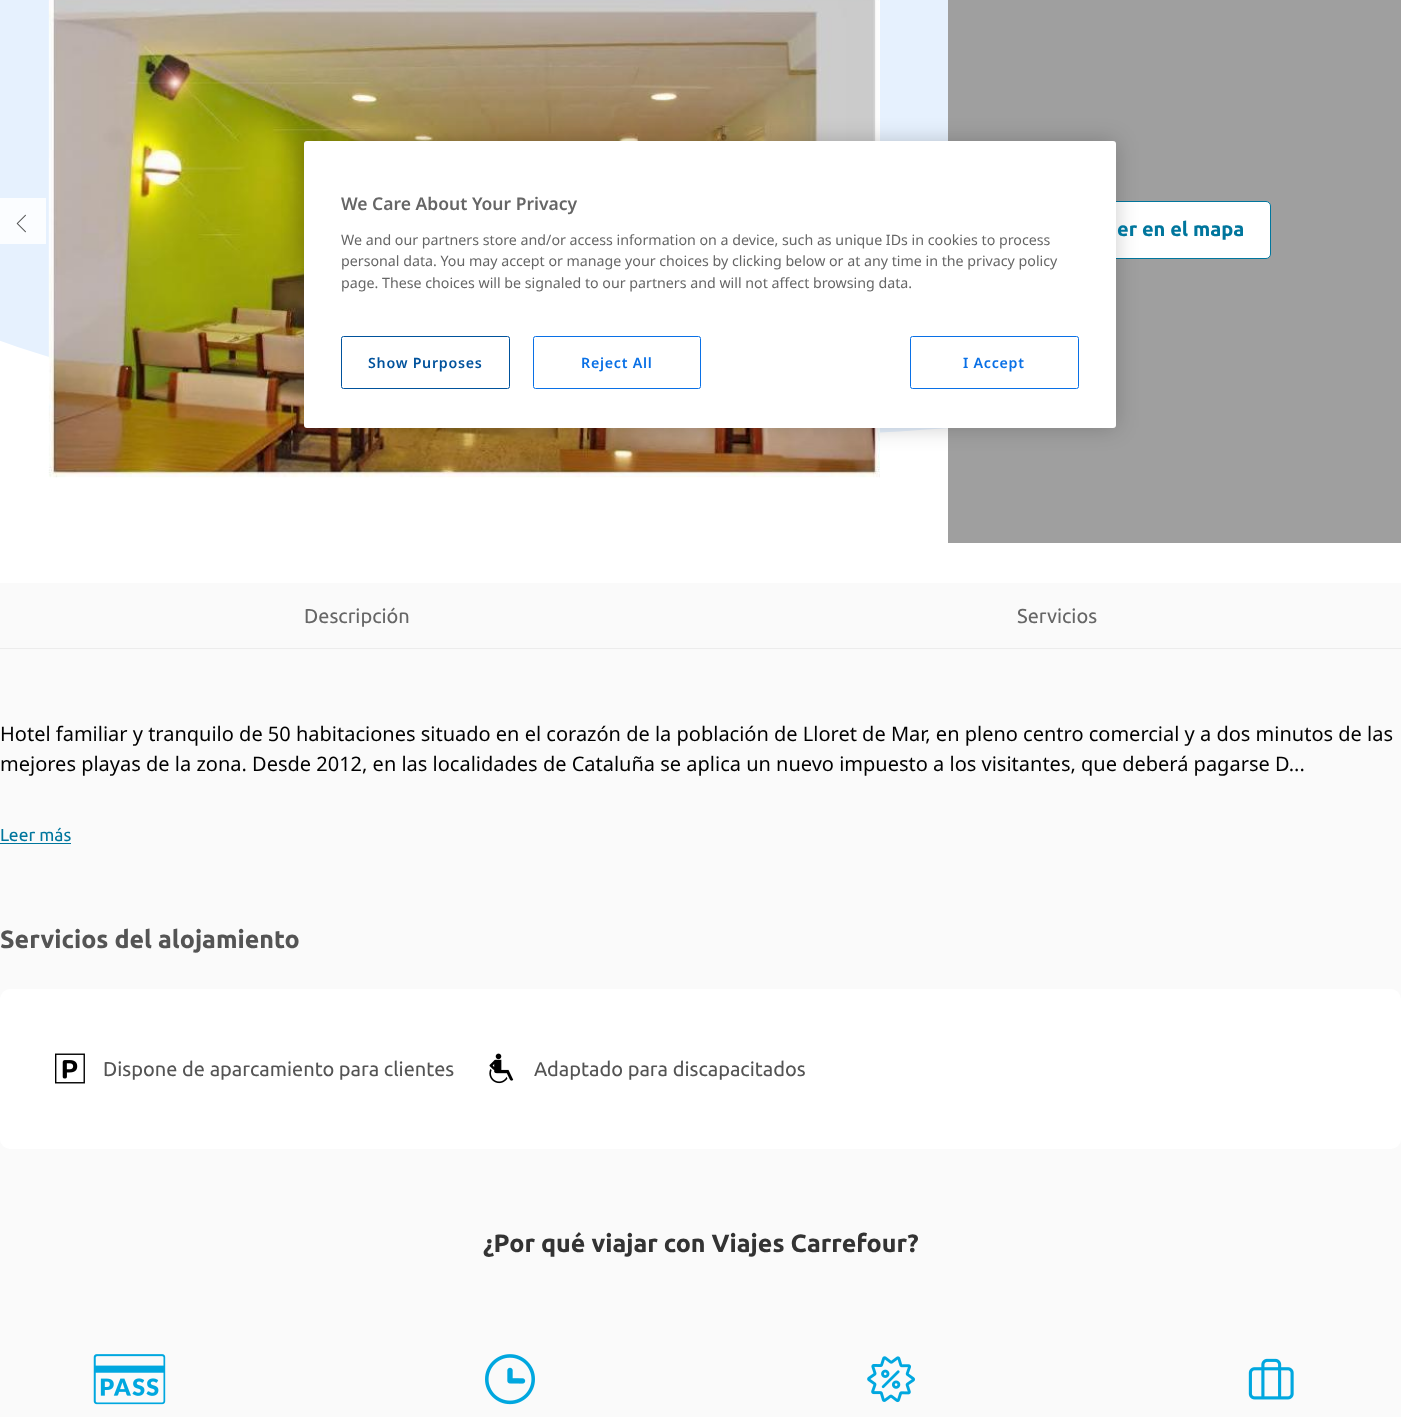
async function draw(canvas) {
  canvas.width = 1401;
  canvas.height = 1417;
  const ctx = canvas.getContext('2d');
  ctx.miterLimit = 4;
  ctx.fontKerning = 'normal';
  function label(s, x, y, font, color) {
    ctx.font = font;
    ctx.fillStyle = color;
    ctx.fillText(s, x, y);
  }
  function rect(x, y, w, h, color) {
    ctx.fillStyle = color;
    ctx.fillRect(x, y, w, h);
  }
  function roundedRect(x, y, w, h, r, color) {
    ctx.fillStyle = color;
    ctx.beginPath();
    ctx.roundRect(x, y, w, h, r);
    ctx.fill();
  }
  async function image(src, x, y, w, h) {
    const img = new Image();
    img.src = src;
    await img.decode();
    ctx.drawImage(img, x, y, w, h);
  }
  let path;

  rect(0, 0, 1401, 1417, '#fff');
  ctx.fillStyle = '#e6f1fe';
  path = new Path2D('M-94 301C98 396 386 437 703 437C1019 437 1304 396 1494 302V-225H-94Z');
  ctx.fill(path);
  await image('assets/img2.png', 48, 0, 832, 478);
  rect(948, 0, 453, 543, '#9f9f9f');
  ctx.fillStyle = '#fff';
  ctx.beginPath();
  ctx.roundRect(1079.5, 201.5, 191, 57, 4.5);
  ctx.fill();
  ctx.strokeStyle = '#00769d';
  ctx.stroke();
  ctx.fillStyle = '#00000033';
  ctx.filter = 'blur(11px)';
  ctx.beginPath();
  ctx.roundRect(304, 141, 812, 287, 3);
  ctx.fill();
  ctx.filter = 'none';
  roundedRect(304, 141, 812, 287, 3, '#fff');
  label('We Care About Your Privacy', 341, 210, '600 17.5px Noto Sans', '#666');
  label('We and our partners store and/or access information on a device, such as unique IDs in cookies to process', 341, 245, '14.23px Noto Sans', '#666');
  label('personal data. You may accept or manage your choices by clicking below or at any time in the privacy policy', 341, 266, '14.23px Noto Sans', '#666');
  label('page. These choices will be signaled to our partners and will not affect browsing data.', 341, 288, '14.23px Noto Sans', '#666');
  ctx.beginPath();
  ctx.roundRect(341.5, 336.5, 168, 52, 2);
  ctx.strokeStyle = '#00529c';
  ctx.stroke();
  ctx.letterSpacing = '0.75px';
  label('Show Purposes', 368, 368, '600 14.23px Noto Sans', '#00529c');
  ctx.beginPath();
  ctx.roundRect(533.5, 336.5, 167, 52, 2);
  ctx.strokeStyle = '#0970e6';
  ctx.stroke();
  label('Reject All', 581, 368, '600 14.23px Noto Sans', '#0970e6');
  ctx.beginPath();
  ctx.roundRect(910.5, 336.5, 168, 52, 2);
  ctx.stroke();
  label('I Accept', 963, 368, '600 14.23px Noto Sans', '#0970e6');
  rect(0, 198, 46, 46, '#fbfdff');
  await image('assets/img1.png', 16, 214, 10, 19);
  ctx.letterSpacing = '0px';
  label('er en el mapa', 1117, 236, 'bold 20px Ubuntu', '#00769d');
  rect(0, 583, 1401, 834, '#fafafa');
  rect(0, 648, 1401, 1, '#ececec');
  label('Descripción', 304, 623, '20px Ubuntu', '#666');
  label('Servicios', 1017, 623, '20px Ubuntu', '#666');
  label('Hotel familiar y tranquilo de 50 habitaciones situado en el corazón de la población de Lloret de Mar, en pleno centro comercial y a dos minutos de las', 0, 741, '20px Noto Sans', '#000');
  label('mejores playas de la zona. Desde 2012, en las localidades de Cataluña se aplica un nuevo impuesto a los visitantes, que deberá pagarse D...', 0, 771, '20px Noto Sans', '#000');
  label('Leer más', 0, 841, '17.5px Ubuntu', '#00769d');
  rect(0, 843, 71, 1, '#00769d');
  label('Servicios del alojamiento', 0, 948, 'bold 25px Ubuntu', '#545454');
  roundedRect(0, 989, 1401, 160, 10, '#fff');
  await image('assets/img3.png', 55, 1053, 30, 31);
  label('Dispone de aparcamiento para clientes', 103, 1076, '20px Ubuntu', '#545454');
  await image('assets/img4.png', 489, 1053, 25, 31);
  label('Adaptado para discapacitados', 534, 1076, '20px Ubuntu', '#545454');
  label('¿Por qué viajar con Viajes Carrefour?', 483, 1252, 'bold 25px Ubuntu', '#333');
  await image('assets/img5.png', 93, 1354, 73, 51);
  await image('assets/img6.png', 485, 1354, 50, 51);
  await image('assets/img7.png', 867, 1356, 48, 47);
  await image('assets/img8.png', 1248, 1358, 46, 42);
}

draw(document.querySelector('canvas'));
